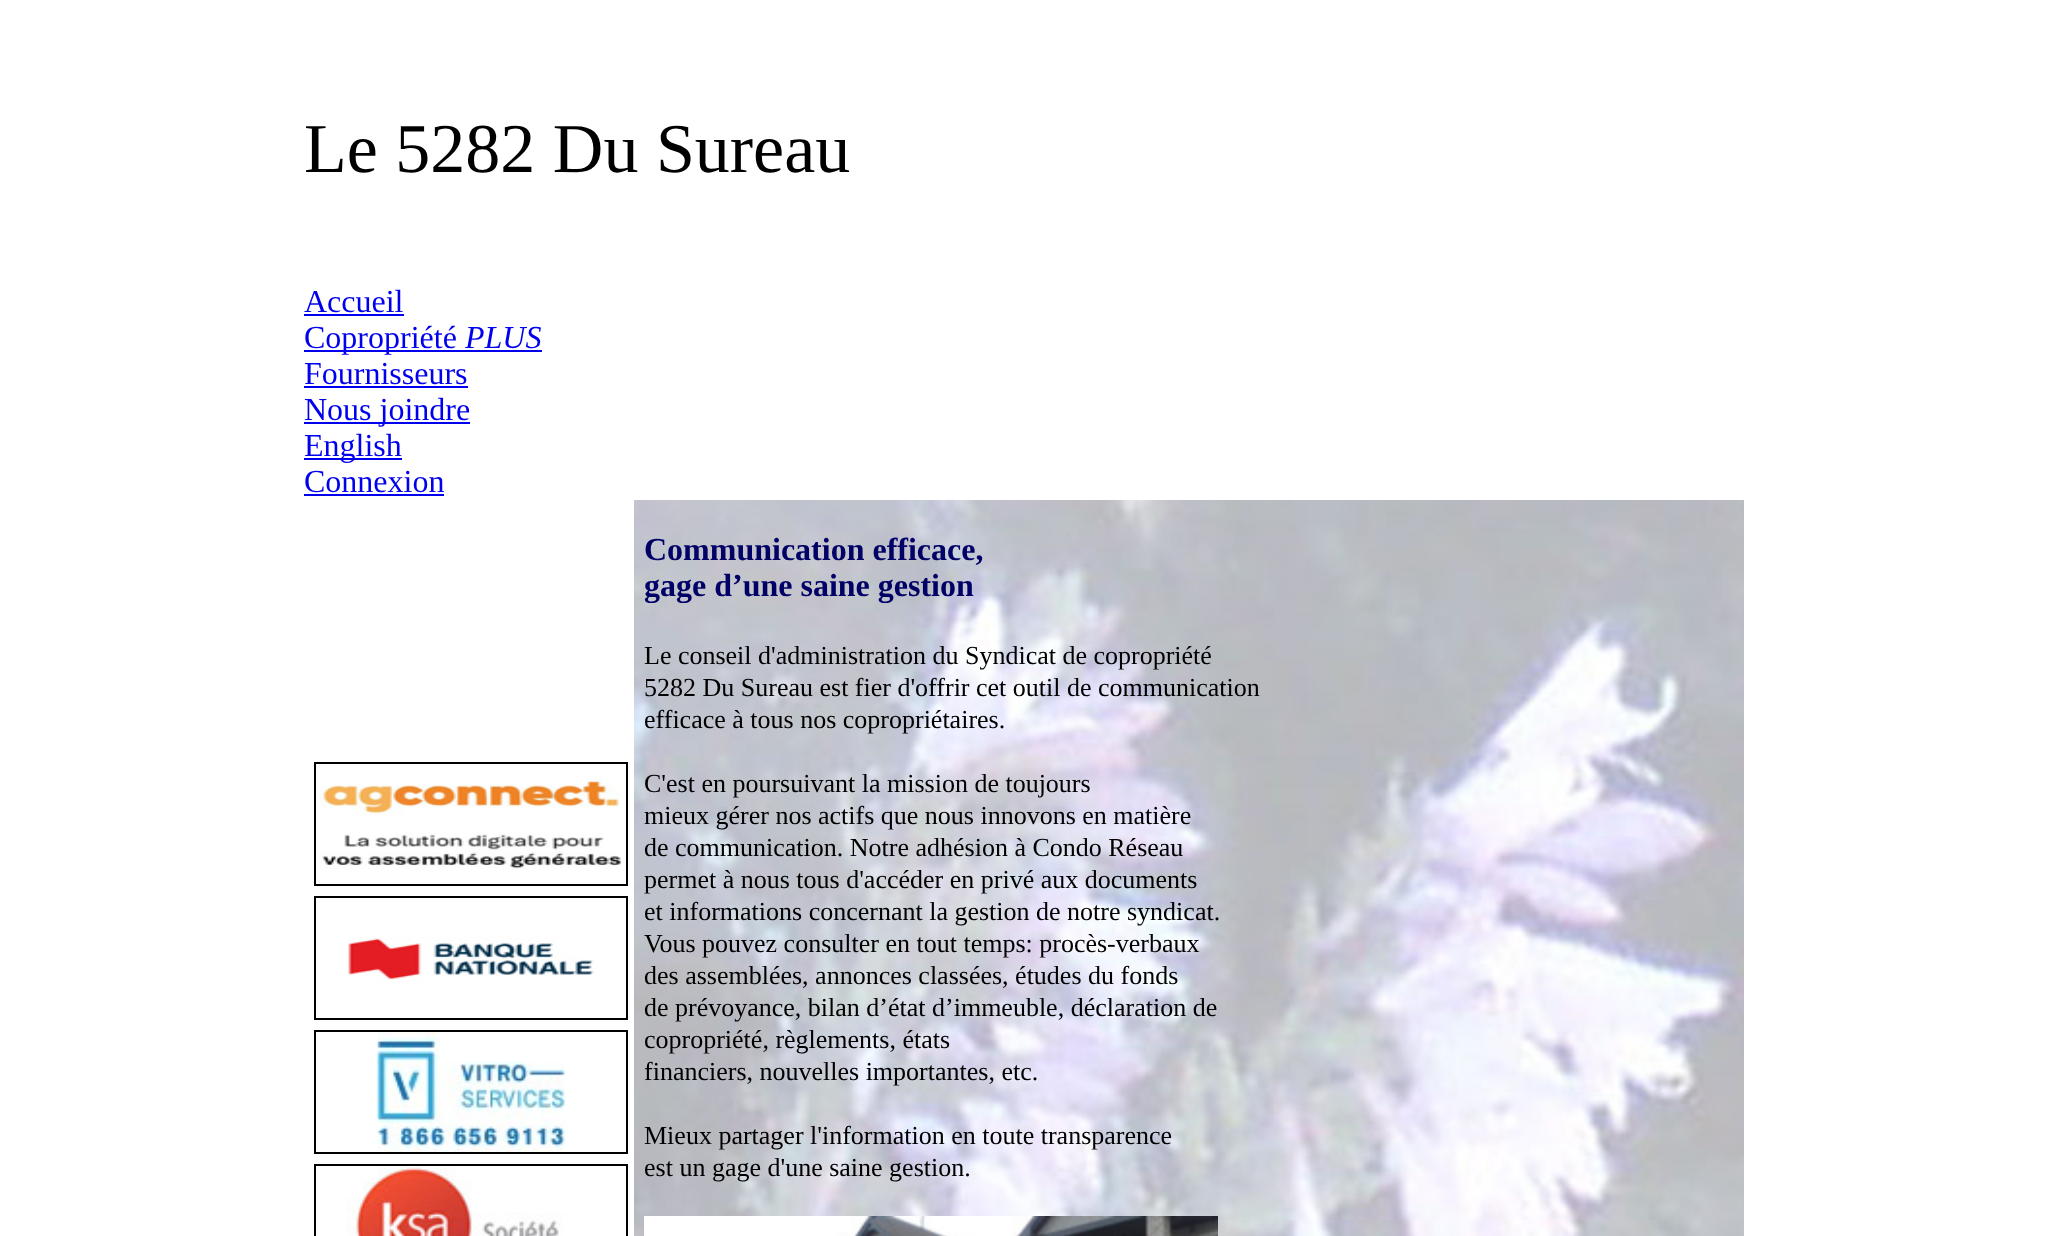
async function draw(canvas) {
  canvas.width = 2048;
  canvas.height = 1236;
  const ctx = canvas.getContext('2d');
  ctx.miterLimit = 4;
  ctx.fontKerning = 'normal';
  function label(s, x, y, font, color) {
    ctx.font = font;
    ctx.fillStyle = color;
    ctx.fillText(s, x, y);
  }
  function rect(x, y, w, h, color) {
    ctx.fillStyle = color;
    ctx.fillRect(x, y, w, h);
  }
  async function image(src, x, y, w, h) {
    const img = new Image();
    img.src = src;
    await img.decode();
    ctx.drawImage(img, x, y, w, h);
  }

  rect(0, 0, 2048, 1236, '#fff');
  label('Le 5282 Du Sureau', 304, 172, '70px Liberation Serif', '#000');
  label('Accueil', 304, 312, '32px Liberation Serif', '#00e');
  rect(304, 314, 100, 2, '#00e');
  rect(304, 350, 238, 2, '#00e');
  label('Copropriété', 304, 348, '32px Liberation Serif', '#00e');
  label('PLUS', 465, 348, 'italic 32px Liberation Serif', '#00e');
  label('Fournisseurs', 304, 384, '32px Liberation Serif', '#00e');
  rect(304, 386, 164, 2, '#00e');
  rect(304, 422, 166, 2, '#00e');
  label('Nous joindre', 304, 420, '32px Liberation Serif', '#00e');
  rect(304, 458, 98, 2, '#00e');
  label('English', 304, 456, '32px Liberation Serif', '#00e');
  label('Connexion', 304, 492, '32px Liberation Serif', '#00e');
  rect(304, 494, 140, 2, '#00e');
  await image('assets/img1.png', 314, 762, 314, 124);
  await image('assets/img2.png', 314, 896, 314, 124);
  await image('assets/img3.png', 314, 1030, 314, 124);
  await image('assets/img4.png', 314, 1164, 314, 72);
  await image('assets/img5.png', 634, 500, 1110, 736);
  label('Communication efficace,', 644, 560, 'bold 32px Liberation Serif', '#006');
  label('gage d’une saine gestion', 644, 596, 'bold 32px Liberation Serif', '#006');
  label('Le conseil d\'administration du Syndicat de copropriété', 644, 664, '26px Liberation Serif', '#000');
  label('5282 Du Sureau est fier d\'offrir cet outil de communication', 644, 696, '26px Liberation Serif', '#000');
  label('efficace à tous nos copropriétaires.', 644, 728, '26px Liberation Serif', '#000');
  label('C\'est en poursuivant la mission de toujours', 644, 792, '26px Liberation Serif', '#000');
  label('mieux gérer nos actifs que nous innovons en matière', 644, 824, '26px Liberation Serif', '#000');
  label('de communication. Notre adhésion à Condo Réseau', 644, 856, '26px Liberation Serif', '#000');
  label('permet à nous tous d\'accéder en privé aux documents', 644, 888, '26px Liberation Serif', '#000');
  label('et informations concernant la gestion de notre syndicat.', 644, 920, '26px Liberation Serif', '#000');
  label('Vous pouvez consulter en tout temps: procès-verbaux', 644, 952, '26px Liberation Serif', '#000');
  label('des assemblées, annonces classées, études du fonds', 644, 984, '26px Liberation Serif', '#000');
  label('de prévoyance, bilan d’état d’immeuble, déclaration de', 644, 1016, '26px Liberation Serif', '#000');
  label('copropriété, règlements, états', 644, 1048, '26px Liberation Serif', '#000');
  label('financiers, nouvelles importantes, etc.', 644, 1080, '26px Liberation Serif', '#000');
  label('Mieux partager l\'information en toute transparence', 644, 1144, '26px Liberation Serif', '#000');
  label('est un gage d\'une saine gestion.', 644, 1176, '26px Liberation Serif', '#000');
  await image('assets/img6.png', 644, 1216, 574, 20);
}

draw(document.querySelector('canvas'));
